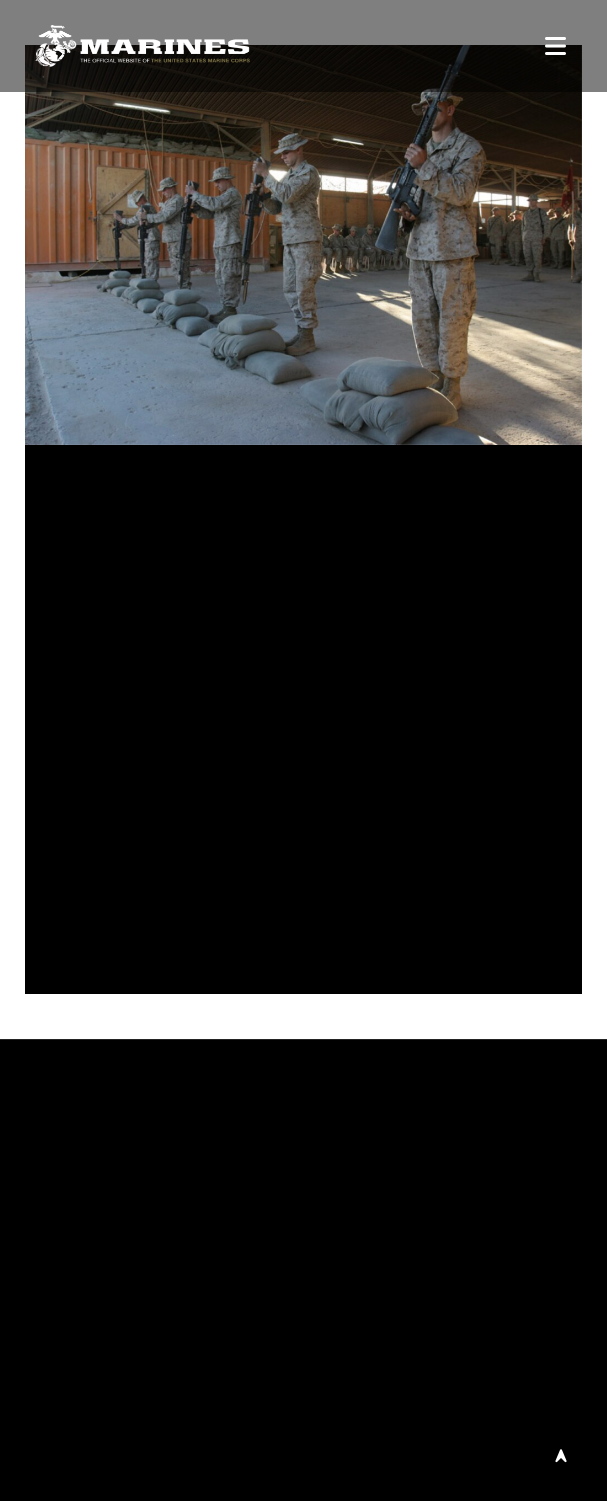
async function draw(canvas) {
  canvas.width = 607;
  canvas.height = 1501;
  const ctx = canvas.getContext('2d');
  ctx.miterLimit = 4;
  ctx.fontKerning = 'normal';
  function rect(x, y, w, h, color) {
    ctx.fillStyle = color;
    ctx.fillRect(x, y, w, h);
  }
  async function image(src, x, y, w, h) {
    const img = new Image();
    img.src = src;
    await img.decode();
    ctx.drawImage(img, x, y, w, h);
  }

  rect(0, 0, 607, 1501, '#fff');
  await image('assets/img3.png', 25, 45, 557, 400);
  rect(0, 0, 607, 92, '#00000080');
  await image('assets/img1.png', 35, 25, 215, 42);
  await image('assets/img2.png', 545, 37, 21, 18);
  rect(25, 445, 557, 549, '#000');
  rect(0, 1040, 607, 461, '#000');
  rect(0, 1039, 607, 1, '#232323');
  await image('assets/img4.png', 555, 1449, 12, 14);
}

draw(document.querySelector('canvas'));
